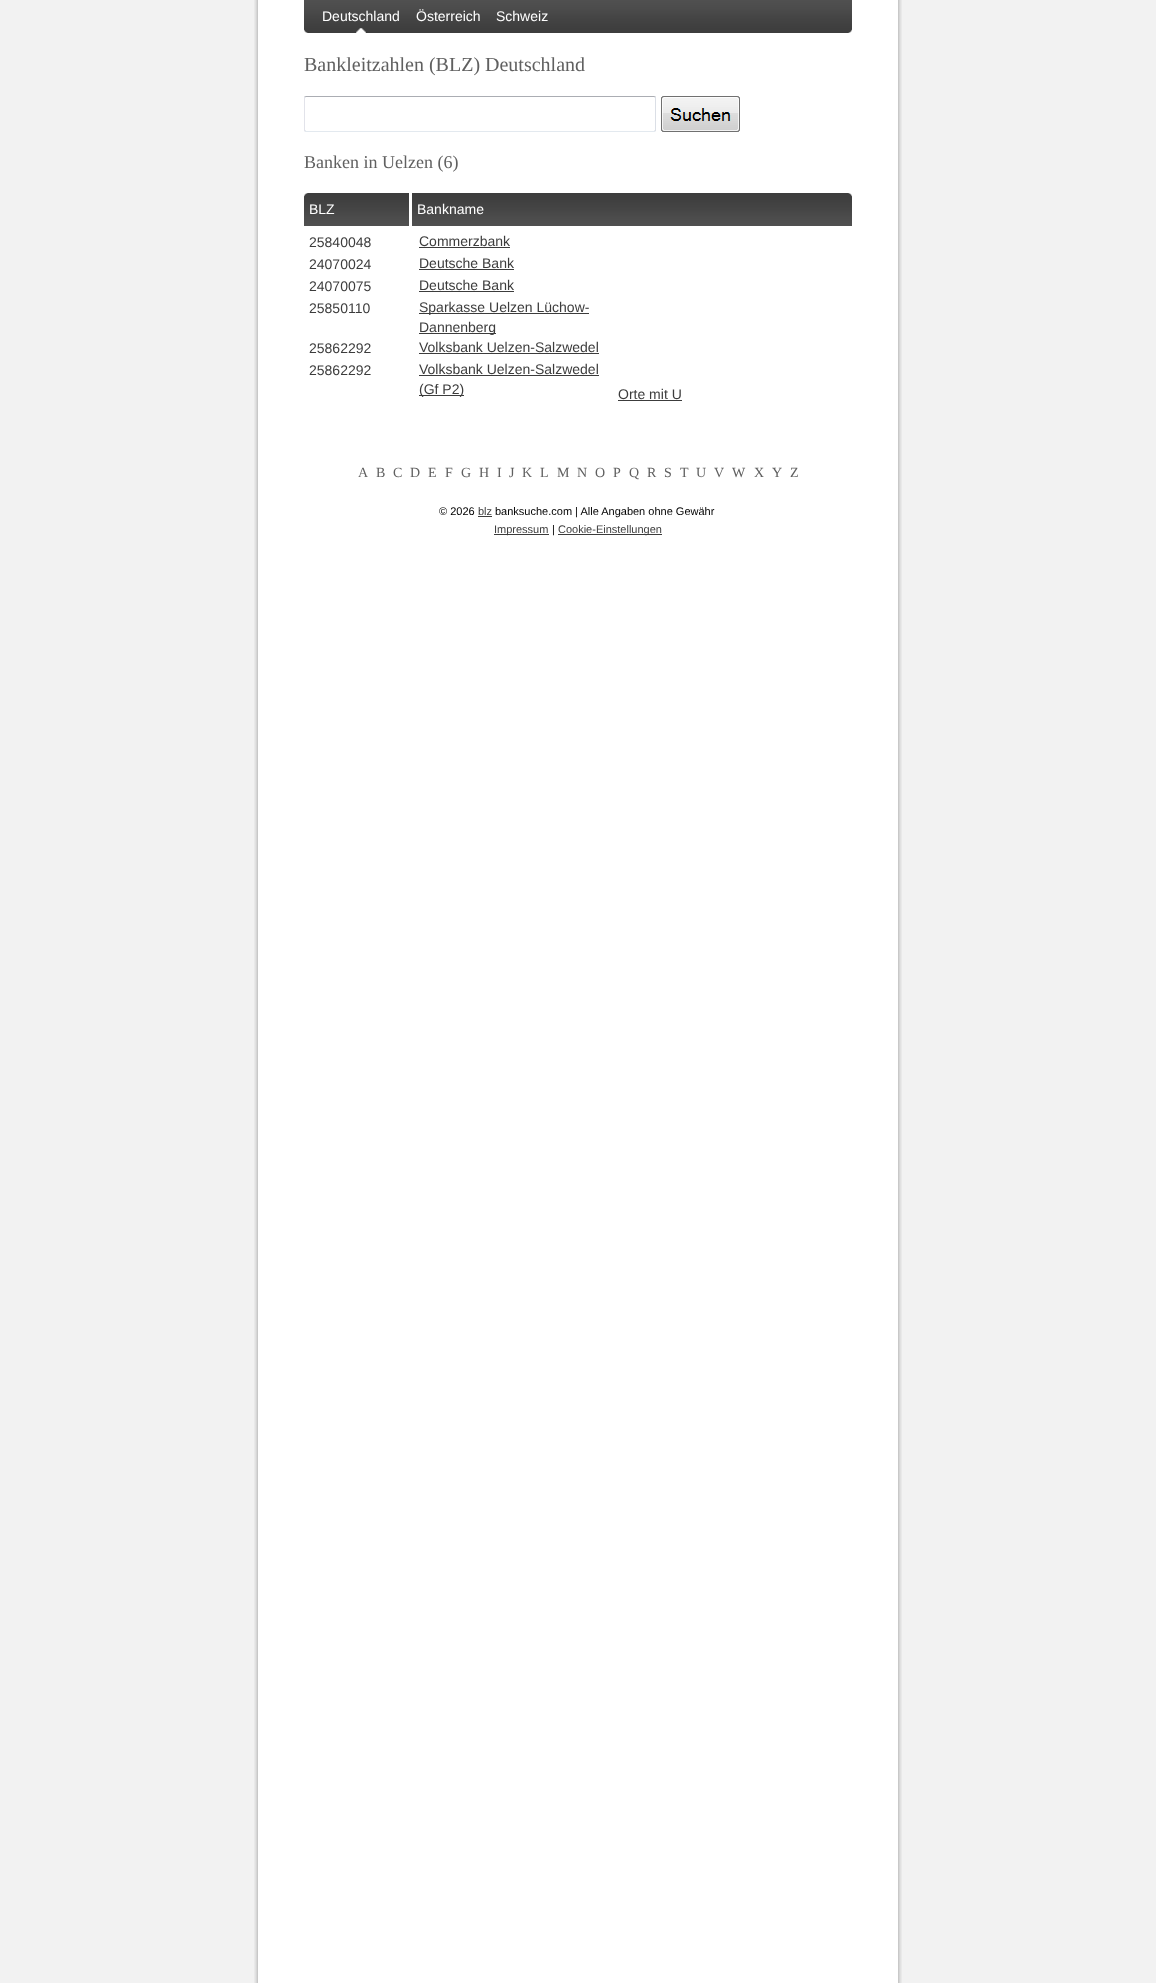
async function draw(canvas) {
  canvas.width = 1156;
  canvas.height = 1983;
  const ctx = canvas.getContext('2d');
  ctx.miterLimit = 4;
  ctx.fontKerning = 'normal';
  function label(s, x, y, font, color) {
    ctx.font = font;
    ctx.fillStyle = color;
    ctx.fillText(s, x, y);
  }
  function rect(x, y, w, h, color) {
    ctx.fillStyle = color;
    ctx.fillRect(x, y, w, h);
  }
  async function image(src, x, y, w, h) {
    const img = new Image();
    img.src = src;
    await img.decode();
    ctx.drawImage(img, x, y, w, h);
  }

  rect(0, 0, 1156, 1983, '#f2f2f2');
  await image('assets/img1.png', 254, 0, 648, 1983);
  await image('assets/img2.png', 304, 0, 548, 33);
  await image('assets/img3.png', 356, 28, 10, 5);
  label('Deutschland', 322, 21, '14px Liberation Sans', '#fff');
  label('Österreich', 416, 21, '14px Liberation Sans', '#fff');
  label('Schweiz', 496, 21, '14px Liberation Sans', '#fff');
  label('Bankleitzahlen (BLZ) Deutschland', 304, 71, '20px Liberation Serif', '#606060');
  await image('assets/img4.png', 304, 96, 352, 36);
  await image('assets/img5.png', 661, 96, 79, 36);
  label('Banken in Uelzen (6)', 304, 168, '18px Liberation Serif', '#606060');
  await image('assets/img6.png', 356, 193, 496, 33);
  await image('assets/img7.png', 304, 193, 52, 33);
  rect(409, 193, 3, 33, '#fff');
  label('BLZ', 309, 214, '14px Liberation Sans', '#fff');
  label('Bankname', 417, 214, '14px Liberation Sans', '#fff');
  label('25840048', 309, 247, '14px Liberation Sans', '#3c3c3c');
  label('Commerzbank', 419, 246, '14px Liberation Sans', '#3c3c3c');
  rect(419, 247, 91, 1, '#3c3c3c');
  label('24070024', 309, 269, '14px Liberation Sans', '#3c3c3c');
  label('Deutsche Bank', 419, 268, '14px Liberation Sans', '#3c3c3c');
  rect(419, 269, 95, 1, '#3c3c3c');
  label('24070075', 309, 291, '14px Liberation Sans', '#3c3c3c');
  label('Deutsche Bank', 419, 290, '14px Liberation Sans', '#3c3c3c');
  rect(419, 291, 95, 1, '#3c3c3c');
  label('25850110', 309, 313, '14px Liberation Sans', '#3c3c3c');
  rect(419, 313, 170, 1, '#3c3c3c');
  label('Sparkasse Uelzen Lüchow-', 419, 312, '14px Liberation Sans', '#3c3c3c');
  rect(419, 333, 77, 1, '#3c3c3c');
  label('Dannenberg', 419, 332, '14px Liberation Sans', '#3c3c3c');
  label('25862292', 309, 353, '14px Liberation Sans', '#3c3c3c');
  label('Volksbank Uelzen-Salzwedel', 419, 352, '14px Liberation Sans', '#3c3c3c');
  rect(419, 353, 180, 1, '#3c3c3c');
  label('25862292', 309, 375, '14px Liberation Sans', '#3c3c3c');
  label('Volksbank Uelzen-Salzwedel', 419, 374, '14px Liberation Sans', '#3c3c3c');
  rect(419, 375, 180, 1, '#3c3c3c');
  rect(419, 395, 45, 1, '#3c3c3c');
  label('(Gf P2)', 419, 394, '14px Liberation Sans', '#3c3c3c');
  label('Orte mit U', 618, 399, '14px Liberation Sans', '#3c3c3c');
  rect(618, 400, 64, 1, '#3c3c3c');
  label('A', 358, 477, '14px Liberation Serif', '#606060');
  label('B', 376, 477, '14px Liberation Serif', '#606060');
  label('C', 393, 477, '14px Liberation Serif', '#606060');
  label('D', 410, 477, '14px Liberation Serif', '#606060');
  label('E', 428, 477, '14px Liberation Serif', '#606060');
  label('F', 445, 477, '14px Liberation Serif', '#606060');
  label('G', 461, 477, '14px Liberation Serif', '#606060');
  label('H', 479, 477, '14px Liberation Serif', '#606060');
  label('I', 497, 477, '14px Liberation Serif', '#606060');
  label('J', 509, 477, '14px Liberation Serif', '#606060');
  label('K', 522, 477, '14px Liberation Serif', '#606060');
  label('L', 540, 477, '14px Liberation Serif', '#606060');
  label('M', 557, 477, '14px Liberation Serif', '#606060');
  label('N', 577, 477, '14px Liberation Serif', '#606060');
  label('O', 595, 477, '14px Liberation Serif', '#606060');
  label('P', 613, 477, '14px Liberation Serif', '#606060');
  label('Q', 629, 477, '14px Liberation Serif', '#606060');
  label('R', 647, 477, '14px Liberation Serif', '#606060');
  label('S', 664, 477, '14px Liberation Serif', '#606060');
  label('T', 680, 477, '14px Liberation Serif', '#606060');
  label('U', 696, 477, '14px Liberation Serif', '#606060');
  label('V', 714, 477, '14px Liberation Serif', '#606060');
  label('W', 732, 477, '14px Liberation Serif', '#606060');
  label('X', 754, 477, '14px Liberation Serif', '#606060');
  label('Y', 772, 477, '14px Liberation Serif', '#606060');
  label('Z', 790, 477, '14px Liberation Serif', '#606060');
  label('© 2026', 439, 515, '11px Liberation Sans', '#000');
  label('blz', 478, 515, '11px Liberation Sans', '#3c3c3c');
  rect(478, 516, 14, 1, '#3c3c3c');
  label('banksuche.com | Alle Angaben ohne Gewähr', 495, 515, '11px Liberation Sans', '#000');
  rect(494, 534, 55, 1, '#3c3c3c');
  label('Impressum', 494, 533, '11px Liberation Sans', '#3c3c3c');
  label('|', 552, 533, '11px Liberation Sans', '#000');
  rect(558, 534, 104, 1, '#3c3c3c');
  label('Cookie-Einstellungen', 558, 533, '11px Liberation Sans', '#3c3c3c');
}

draw(document.querySelector('canvas'));
